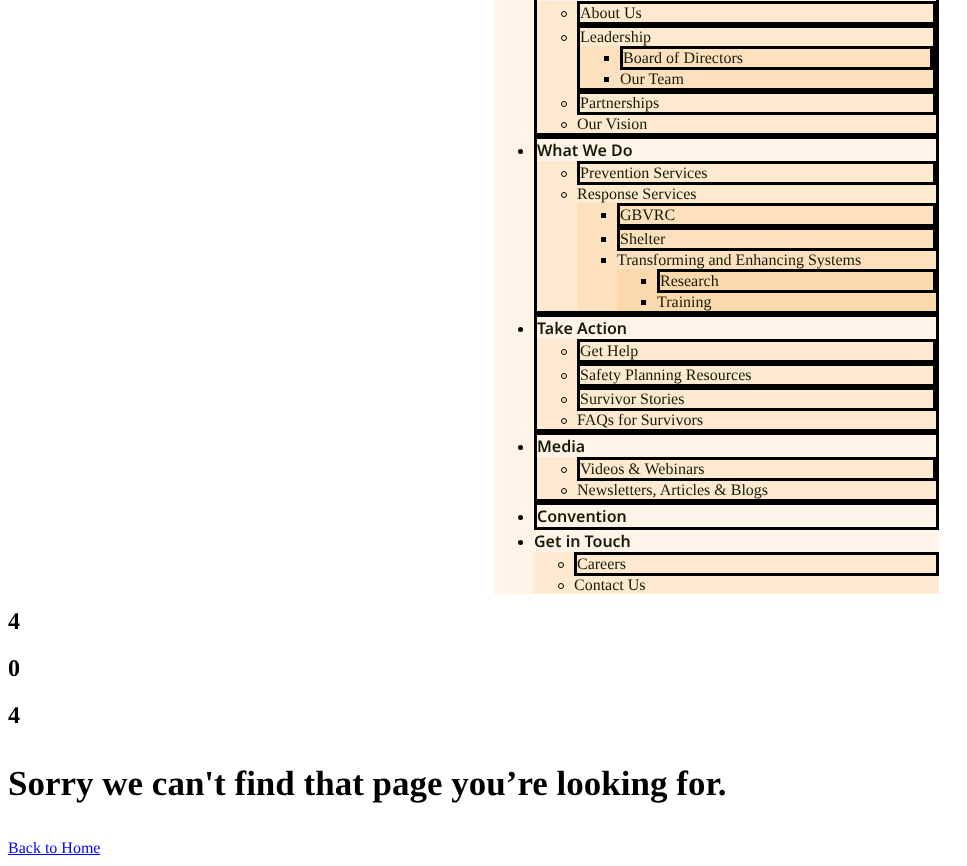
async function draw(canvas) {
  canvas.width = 967;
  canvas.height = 866;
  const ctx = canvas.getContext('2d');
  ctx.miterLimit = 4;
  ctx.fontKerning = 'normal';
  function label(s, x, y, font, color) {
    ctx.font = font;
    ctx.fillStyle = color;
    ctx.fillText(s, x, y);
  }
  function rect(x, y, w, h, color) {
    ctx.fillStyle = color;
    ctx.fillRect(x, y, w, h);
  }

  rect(0, 0, 967, 866, '#fff');
  rect(494, 0, 445, 594, '#fff4e7');
  ctx.strokeStyle = '#000';
  ctx.lineWidth = 3;
  ctx.strokeRect(535.5, -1.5, 402, 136);
  rect(537, 1, 399, 132, '#fee9d1');
  ctx.strokeRect(578.5, 2.5, 356, 21);
  ctx.beginPath();
  ctx.arc(564, 14, 2.5, 0, 2 * Math.PI);
  ctx.lineWidth = 1;
  ctx.stroke();
  label('About Us', 580, 18, '16px Liberation Serif', '#161b05');
  ctx.lineWidth = 3;
  ctx.strokeRect(578.5, 26.5, 356, 63);
  ctx.beginPath();
  ctx.arc(564, 38, 2.5, 0, 2 * Math.PI);
  ctx.lineWidth = 1;
  ctx.stroke();
  label('Leadership', 580, 42, '16px Liberation Serif', '#161b05');
  rect(580, 46, 353, 42, '#fde0be');
  ctx.lineWidth = 3;
  ctx.strokeRect(621.5, 47.5, 310, 21);
  rect(604, 56, 5, 5, '#000');
  label('Board of Directors', 623, 63, '16px Liberation Serif', '#161b05');
  rect(604, 77, 5, 5, '#000');
  label('Our Team', 620, 84, '16px Liberation Serif', '#161b05');
  ctx.strokeRect(578.5, 92.5, 356, 21);
  ctx.beginPath();
  ctx.arc(564, 104, 2.5, 0, 2 * Math.PI);
  ctx.lineWidth = 1;
  ctx.stroke();
  label('Partnerships', 580, 108, '16px Liberation Serif', '#161b05');
  ctx.beginPath();
  ctx.arc(564, 125, 2.5, 0, 2 * Math.PI);
  ctx.stroke();
  label('Our Vision', 577, 129, '16px Liberation Serif', '#161b05');
  ctx.lineWidth = 3;
  ctx.strokeRect(535.5, 137.5, 402, 175);
  ctx.fillStyle = '#000';
  ctx.beginPath();
  ctx.arc(520.5, 151.5, 2.5, 0, 2 * Math.PI);
  ctx.fill();
  label('What We Do', 537, 156, '600 16px Noto Sans', '#161b05');
  rect(537, 161, 399, 150, '#fee9d1');
  ctx.strokeRect(578.5, 162.5, 356, 21);
  ctx.beginPath();
  ctx.arc(564, 174, 2.5, 0, 2 * Math.PI);
  ctx.lineWidth = 1;
  ctx.stroke();
  label('Prevention Services', 580, 178, '16px Liberation Serif', '#161b05');
  ctx.beginPath();
  ctx.arc(564, 195, 2.5, 0, 2 * Math.PI);
  ctx.stroke();
  label('Response Services', 577, 199, '16px Liberation Serif', '#161b05');
  rect(577, 203, 359, 108, '#fde0be');
  ctx.lineWidth = 3;
  ctx.strokeRect(618.5, 204.5, 316, 21);
  rect(601, 213, 5, 5, '#000');
  label('GBVRC', 620, 220, '16px Liberation Serif', '#161b05');
  ctx.strokeRect(618.5, 228.5, 316, 21);
  rect(601, 237, 5, 5, '#000');
  label('Shelter', 620, 244, '16px Liberation Serif', '#161b05');
  rect(601, 258, 5, 5, '#000');
  label('Transforming and Enhancing Systems', 617, 265, '16px Liberation Serif', '#161b05');
  rect(617, 269, 319, 42, '#fcd8ad');
  ctx.strokeRect(658.5, 270.5, 276, 21);
  rect(641, 279, 5, 5, '#000');
  label('Research', 660, 286, '16px Liberation Serif', '#161b05');
  rect(641, 300, 5, 5, '#000');
  label('Training', 657, 307, '16px Liberation Serif', '#161b05');
  ctx.strokeRect(535.5, 315.5, 402, 115);
  ctx.fillStyle = '#000';
  ctx.beginPath();
  ctx.arc(520.5, 329.5, 2.5, 0, 2 * Math.PI);
  ctx.fill();
  label('Take Action', 537, 334, '600 16px Noto Sans', '#161b05');
  rect(537, 339, 399, 90, '#fee9d1');
  ctx.strokeRect(578.5, 340.5, 356, 21);
  ctx.beginPath();
  ctx.arc(564, 352, 2.5, 0, 2 * Math.PI);
  ctx.lineWidth = 1;
  ctx.stroke();
  label('Get Help', 580, 356, '16px Liberation Serif', '#161b05');
  ctx.lineWidth = 3;
  ctx.strokeRect(578.5, 364.5, 356, 21);
  ctx.beginPath();
  ctx.arc(564, 376, 2.5, 0, 2 * Math.PI);
  ctx.lineWidth = 1;
  ctx.stroke();
  label('Safety Planning Resources', 580, 380, '16px Liberation Serif', '#161b05');
  ctx.lineWidth = 3;
  ctx.strokeRect(578.5, 388.5, 356, 21);
  ctx.beginPath();
  ctx.arc(564, 400, 2.5, 0, 2 * Math.PI);
  ctx.lineWidth = 1;
  ctx.stroke();
  label('Survivor Stories', 580, 404, '16px Liberation Serif', '#161b05');
  ctx.beginPath();
  ctx.arc(564, 421, 2.5, 0, 2 * Math.PI);
  ctx.stroke();
  label('FAQs for Survivors', 577, 425, '16px Liberation Serif', '#161b05');
  ctx.lineWidth = 3;
  ctx.strokeRect(535.5, 433.5, 402, 67);
  ctx.fillStyle = '#000';
  ctx.beginPath();
  ctx.arc(520.5, 447.5, 2.5, 0, 2 * Math.PI);
  ctx.fill();
  label('Media', 537, 452, '600 16px Noto Sans', '#161b05');
  rect(537, 457, 399, 42, '#fee9d1');
  ctx.strokeRect(578.5, 458.5, 356, 21);
  ctx.beginPath();
  ctx.arc(564, 470, 2.5, 0, 2 * Math.PI);
  ctx.lineWidth = 1;
  ctx.stroke();
  label('Videos & Webinars', 580, 474, '16px Liberation Serif', '#161b05');
  ctx.beginPath();
  ctx.arc(564, 491, 2.5, 0, 2 * Math.PI);
  ctx.stroke();
  label('Newsletters, Articles & Blogs', 577, 495, '16px Liberation Serif', '#161b05');
  ctx.lineWidth = 3;
  ctx.strokeRect(535.5, 503.5, 402, 25);
  ctx.fillStyle = '#000';
  ctx.beginPath();
  ctx.arc(520.5, 517.5, 2.5, 0, 2 * Math.PI);
  ctx.fill();
  label('Convention', 537, 522, '600 16px Noto Sans', '#161b05');
  ctx.fillStyle = '#000';
  ctx.beginPath();
  ctx.arc(520.5, 542.5, 2.5, 0, 2 * Math.PI);
  ctx.fill();
  label('Get in Touch', 534, 547, '600 16px Noto Sans', '#161b05');
  rect(534, 552, 405, 42, '#fee9d1');
  ctx.strokeRect(575.5, 553.5, 362, 21);
  ctx.beginPath();
  ctx.arc(561, 565, 2.5, 0, 2 * Math.PI);
  ctx.lineWidth = 1;
  ctx.stroke();
  label('Careers', 577, 569, '16px Liberation Serif', '#161b05');
  ctx.beginPath();
  ctx.arc(561, 586, 2.5, 0, 2 * Math.PI);
  ctx.stroke();
  label('Contact Us', 574, 590, '16px Liberation Serif', '#161b05');
  label('4', 8, 629, 'bold 24px Liberation Serif', '#000');
  label('0', 8, 676, 'bold 24px Liberation Serif', '#000');
  label('4', 8, 723, 'bold 24px Liberation Serif', '#000');
  label('Sorry we can\'t find that page you’re looking for.', 8, 795, 'bold 35px Liberation Serif', '#000');
  label('Back to Home', 8, 853, '16px Liberation Serif', '#00e');
  rect(8, 854, 92, 1, '#00e');
}

draw(document.querySelector('canvas'));
